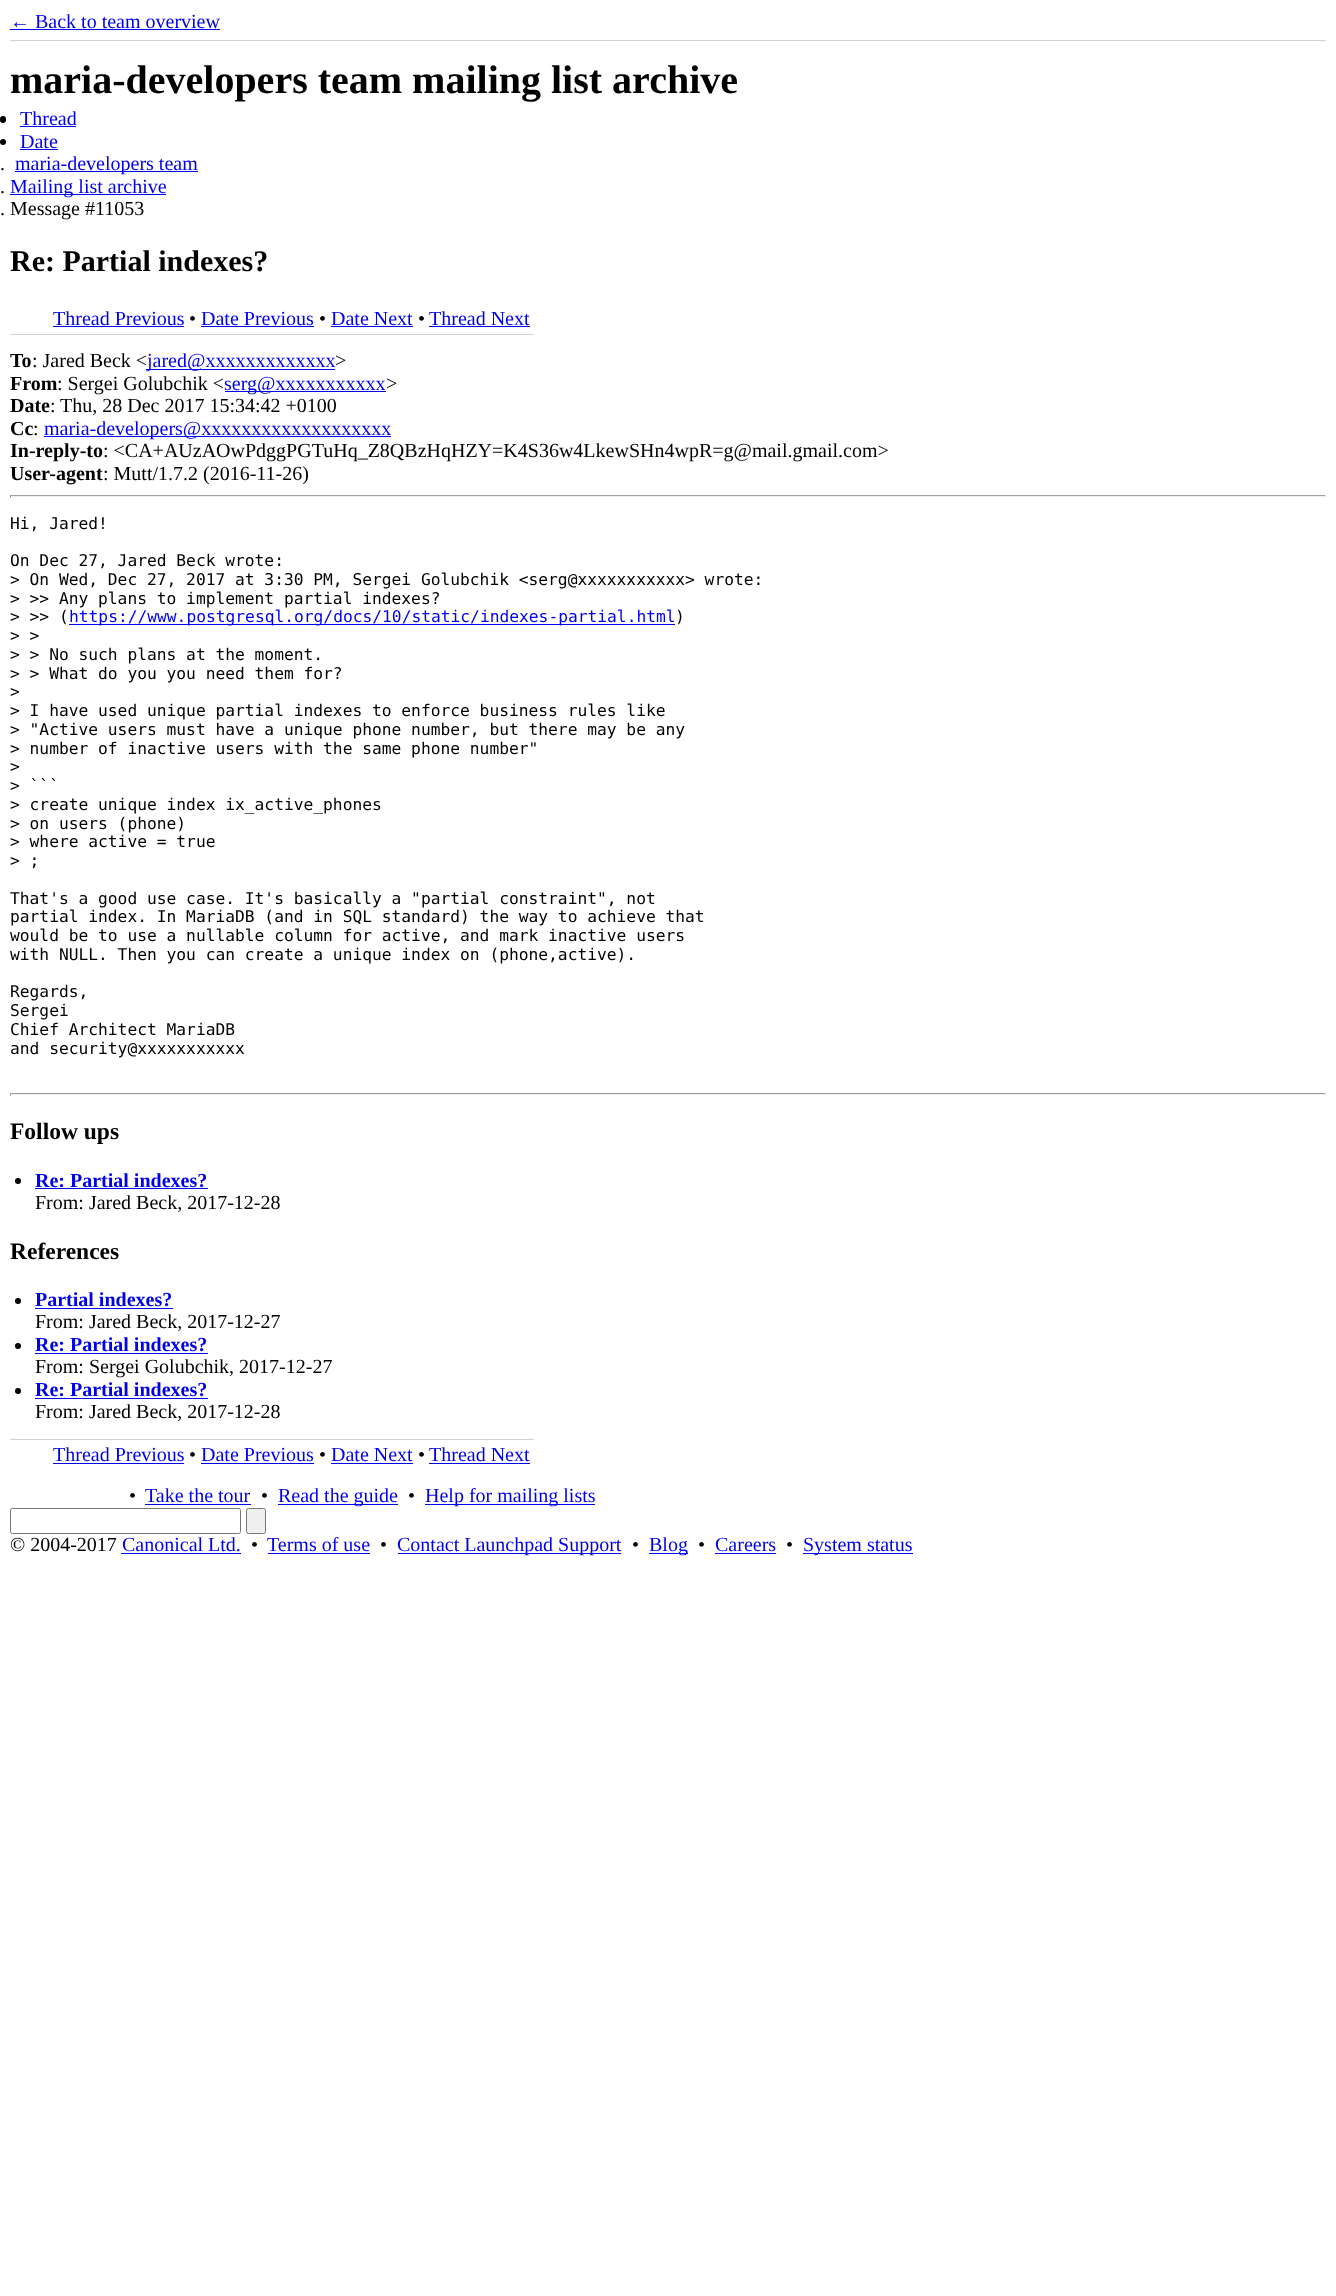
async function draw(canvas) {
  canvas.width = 1336;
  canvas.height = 2296;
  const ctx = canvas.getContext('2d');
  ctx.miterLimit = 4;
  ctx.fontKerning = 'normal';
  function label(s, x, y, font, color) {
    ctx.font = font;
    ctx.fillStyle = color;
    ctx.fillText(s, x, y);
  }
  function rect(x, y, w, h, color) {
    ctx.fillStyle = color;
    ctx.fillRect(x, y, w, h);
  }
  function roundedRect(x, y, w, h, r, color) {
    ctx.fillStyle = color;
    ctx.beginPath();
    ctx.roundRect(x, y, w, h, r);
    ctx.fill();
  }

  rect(0, 0, 1336, 2296, '#fff');
  rect(10, 40, 1316, 1, '#d2d2d2');
  label('← Back to team overview', 10, 28, '20px Liberation Serif', '#00e');
  rect(10, 29, 210, 1, '#00e');
  label('maria-developers team mailing list archive', 10, 93, 'bold 40px Liberation Serif', '#000');
  roundedRect(0, 116, 6, 7, 3, '#000');
  label('Thread', 20, 125, '20px Liberation Serif', '#00e');
  rect(20, 126, 56, 1, '#00e');
  ctx.fillStyle = '#000';
  ctx.beginPath();
  ctx.arc(3, 142, 3, 0, 2 * Math.PI);
  ctx.fill();
  label('Date', 20, 148, '20px Liberation Serif', '#00e');
  rect(20, 149, 38, 1, '#00e');
  label('.', 0, 170, '20px Liberation Serif', '#000');
  rect(15, 171, 183, 1, '#00e');
  label('maria-developers team', 15, 170, '20px Liberation Serif', '#00e');
  label('.', 0, 193, '20px Liberation Serif', '#000');
  rect(10, 194, 156, 1, '#00e');
  label('Mailing list archive', 10, 193, '20px Liberation Serif', '#00e');
  label('. Message #11053', 0, 215, '20px Liberation Serif', '#000');
  label('Re: Partial indexes?', 10, 271, 'bold 30px Liberation Serif', '#000');
  rect(10, 334, 524, 1, '#d2d2d2');
  label('Thread Previous', 53, 325, '20px Liberation Serif', '#00e');
  rect(53, 326, 131, 1, '#00e');
  label('•', 189, 325, '20px Liberation Serif', '#000');
  label('Date Previous', 201, 325, '20px Liberation Serif', '#00e');
  rect(201, 326, 113, 1, '#00e');
  label('•', 319, 325, '20px Liberation Serif', '#000');
  label('Date Next', 331, 325, '20px Liberation Serif', '#00e');
  rect(331, 326, 82, 1, '#00e');
  label('•', 418, 325, '20px Liberation Serif', '#000');
  label('Thread Next', 429, 325, '20px Liberation Serif', '#00e');
  rect(429, 326, 101, 1, '#00e');
  label('To', 10, 367, 'bold 20px Liberation Serif', '#000');
  label(': Jared Beck <', 32, 367, '20px Liberation Serif', '#000');
  rect(146, 369, 189, 1, '#00e');
  label('jared@xxxxxxxxxxxxx', 147, 367, '20px Liberation Serif', '#00e');
  label('>', 335, 367, '20px Liberation Serif', '#000');
  label('From', 10, 390, 'bold 20px Liberation Serif', '#000');
  label(': Sergei Golubchik <', 57, 390, '20px Liberation Serif', '#000');
  rect(225, 391, 161, 1, '#00e');
  label('serg@xxxxxxxxxxx', 224, 390, '20px Liberation Serif', '#00e');
  label('>', 386, 390, '20px Liberation Serif', '#000');
  label('Date', 10, 412, 'bold 20px Liberation Serif', '#000');
  label(':', 50, 412, '20px Liberation Serif', '#000');
  label('Thu, 28 Dec 2017 15:34:42 +0100', 60, 412, '20px Liberation Serif', '#000');
  label('Cc', 10, 435, 'bold 20px Liberation Serif', '#000');
  label(':', 33, 435, '20px Liberation Serif', '#000');
  rect(44, 436, 347, 1, '#00e');
  label('maria-developers@xxxxxxxxxxxxxxxxxxx', 44, 435, '20px Liberation Serif', '#00e');
  label('In-reply-to', 10, 457, 'bold 20px Liberation Serif', '#000');
  label(': <CA+AUzAOwPdggPGTuHq_Z8QBzHqHZY=K4S36w4LkewSHn4wpR=g@mail.gmail.com>', 103, 457, '20px Liberation Serif', '#000');
  label('User-agent', 10, 480, 'bold 20px Liberation Serif', '#000');
  label(': Mutt/1.7.2 (2016-11-26)', 103, 480, '20px Liberation Serif', '#000');
  rect(10, 495, 1316, 1, '#9f9f9f');
  rect(1325, 495, 1, 3, '#eee');
  rect(10, 496, 1316, 1, '#eee');
  rect(10, 495, 1, 3, '#9f9f9f');
  label('Hi, Jared!', 10, 529, '16.25px DejaVu Sans Mono', '#000');
  label('On Dec 27, Jared Beck wrote:', 10, 566, '16.25px DejaVu Sans Mono', '#000');
  label('> On Wed, Dec 27, 2017 at 3:30 PM, Sergei Golubchik <serg@xxxxxxxxxxx> wrote:', 10, 585, '16.25px DejaVu Sans Mono', '#000');
  label('> >> Any plans to implement partial indexes?', 10, 604, '16.25px DejaVu Sans Mono', '#000');
  label('> >> (', 10, 622, '16.25px DejaVu Sans Mono', '#000');
  rect(69, 624, 606, 1, '#00e');
  label('https://www.postgresql.org/docs/10/static/indexes-partial.html', 69, 622, '16.25px DejaVu Sans Mono', '#00e');
  label(')', 675, 622, '16.25px DejaVu Sans Mono', '#000');
  label('> >', 10, 641, '16.25px DejaVu Sans Mono', '#000');
  label('> > No such plans at the moment.', 10, 660, '16.25px DejaVu Sans Mono', '#000');
  label('> > What do you you need them for?', 10, 679, '16.25px DejaVu Sans Mono', '#000');
  label('>', 10, 697, '16.25px DejaVu Sans Mono', '#000');
  label('> I have used unique partial indexes to enforce business rules like', 10, 716, '16.25px DejaVu Sans Mono', '#000');
  label('> "Active users must have a unique phone number, but there may be any', 10, 735, '16.25px DejaVu Sans Mono', '#000');
  label('> number of inactive users with the same phone number"', 10, 754, '16.25px DejaVu Sans Mono', '#000');
  label('>', 10, 772, '16.25px DejaVu Sans Mono', '#000');
  label('> ```', 10, 791, '16.25px DejaVu Sans Mono', '#000');
  label('> create unique index ix_active_phones', 10, 810, '16.25px DejaVu Sans Mono', '#000');
  label('> on users (phone)', 10, 829, '16.25px DejaVu Sans Mono', '#000');
  label('> where active = true', 10, 847, '16.25px DejaVu Sans Mono', '#000');
  label('> ;', 10, 866, '16.25px DejaVu Sans Mono', '#000');
  label('That\'s a good use case. It\'s basically a "partial constraint", not', 10, 904, '16.25px DejaVu Sans Mono', '#000');
  label('partial index. In MariaDB (and in SQL standard) the way to achieve that', 10, 922, '16.25px DejaVu Sans Mono', '#000');
  label('would be to use a nullable column for active, and mark inactive users', 10, 941, '16.25px DejaVu Sans Mono', '#000');
  label('with NULL. Then you can create a unique index on (phone,active).', 10, 960, '16.25px DejaVu Sans Mono', '#000');
  label('Regards,', 10, 997, '16.25px DejaVu Sans Mono', '#000');
  label('Sergei', 10, 1016, '16.25px DejaVu Sans Mono', '#000');
  label('Chief Architect MariaDB', 10, 1035, '16.25px DejaVu Sans Mono', '#000');
  label('and security@xxxxxxxxxxx', 10, 1054, '16.25px DejaVu Sans Mono', '#000');
  rect(10, 1093, 1316, 1, '#9f9f9f');
  rect(1325, 1093, 1, 3, '#eee');
  rect(10, 1094, 1316, 1, '#eee');
  rect(10, 1093, 1, 3, '#9f9f9f');
  label('Follow ups', 10, 1139, 'bold 23.5px Liberation Serif', '#000');
  ctx.beginPath();
  ctx.arc(18, 1181, 3, 0, 2 * Math.PI);
  ctx.fill();
  label('Re: Partial indexes?', 35, 1187, 'bold 20px Liberation Serif', '#00e');
  rect(35, 1188, 173, 1, '#00e');
  label('From: Jared Beck, 2017-12-28', 35, 1209, '20px Liberation Serif', '#000');
  label('References', 10, 1259, 'bold 23.5px Liberation Serif', '#000');
  ctx.beginPath();
  ctx.arc(18, 1301, 3, 0, 2 * Math.PI);
  ctx.fill();
  label('Partial indexes?', 35, 1306, 'bold 20px Liberation Serif', '#00e');
  rect(35, 1308, 138, 1, '#00e');
  label('From: Jared Beck, 2017-12-27', 35, 1328, '20px Liberation Serif', '#000');
  ctx.beginPath();
  ctx.arc(18, 1346, 3, 0, 2 * Math.PI);
  ctx.fill();
  label('Re: Partial indexes?', 35, 1351, 'bold 20px Liberation Serif', '#00e');
  rect(35, 1353, 173, 1, '#00e');
  label('From: Sergei Golubchik, 2017-12-27', 35, 1373, '20px Liberation Serif', '#000');
  ctx.beginPath();
  ctx.arc(18, 1391, 3, 0, 2 * Math.PI);
  ctx.fill();
  label('Re: Partial indexes?', 35, 1396, 'bold 20px Liberation Serif', '#00e');
  rect(35, 1398, 173, 1, '#00e');
  label('From: Jared Beck, 2017-12-28', 35, 1418, '20px Liberation Serif', '#000');
  rect(10, 1439, 524, 1, '#d2d2d2');
  label('Thread Previous', 53, 1461, '20px Liberation Serif', '#00e');
  rect(53, 1463, 131, 1, '#00e');
  label('•', 189, 1461, '20px Liberation Serif', '#000');
  label('Date Previous', 201, 1461, '20px Liberation Serif', '#00e');
  rect(201, 1463, 113, 1, '#00e');
  label('•', 319, 1461, '20px Liberation Serif', '#000');
  label('Date Next', 331, 1461, '20px Liberation Serif', '#00e');
  rect(331, 1463, 82, 1, '#00e');
  label('•', 418, 1461, '20px Liberation Serif', '#000');
  label('Thread Next', 429, 1461, '20px Liberation Serif', '#00e');
  rect(429, 1463, 101, 1, '#00e');
  label('•', 129, 1502, '20px Liberation Serif', '#000');
  label('Take the tour', 145, 1502, '20px Liberation Serif', '#00e');
  rect(145, 1504, 106, 1, '#00e');
  label('•', 261, 1502, '20px Liberation Serif', '#000');
  rect(278, 1504, 120, 1, '#00e');
  label('Read the guide', 278, 1502, '20px Liberation Serif', '#00e');
  label('•', 408, 1502, '20px Liberation Serif', '#000');
  rect(425, 1504, 170, 1, '#00e');
  label('Help for mailing lists', 425, 1502, '20px Liberation Serif', '#00e');
  ctx.beginPath();
  ctx.roundRect(10.5, 1508.5, 230, 25, 2);
  ctx.strokeStyle = '#767676';
  ctx.stroke();
  ctx.fillStyle = '#efefef';
  ctx.beginPath();
  ctx.roundRect(246.5, 1508.5, 19, 25, 2);
  ctx.fill();
  ctx.stroke();
  label('© 2004-2017', 10, 1551, '20px Liberation Serif', '#000');
  label('Canonical Ltd.', 122, 1551, '20px Liberation Serif', '#00e');
  rect(121, 1553, 120, 1, '#00e');
  label('•', 251, 1551, '20px Liberation Serif', '#000');
  label('Terms of use', 267, 1551, '20px Liberation Serif', '#00e');
  rect(268, 1553, 102, 1, '#00e');
  label('•', 380, 1551, '20px Liberation Serif', '#000');
  rect(398, 1553, 223, 1, '#00e');
  label('Contact Launchpad Support', 397, 1551, '20px Liberation Serif', '#00e');
  label('•', 632, 1551, '20px Liberation Serif', '#000');
  rect(649, 1553, 39, 1, '#00e');
  label('Blog', 649, 1551, '20px Liberation Serif', '#00e');
  label('•', 698, 1551, '20px Liberation Serif', '#000');
  label('Careers', 715, 1551, '20px Liberation Serif', '#00e');
  rect(715, 1553, 61, 1, '#00e');
  label('•', 786, 1551, '20px Liberation Serif', '#000');
  rect(803, 1553, 110, 1, '#00e');
  label('System status', 803, 1551, '20px Liberation Serif', '#00e');
}

draw(document.querySelector('canvas'));
